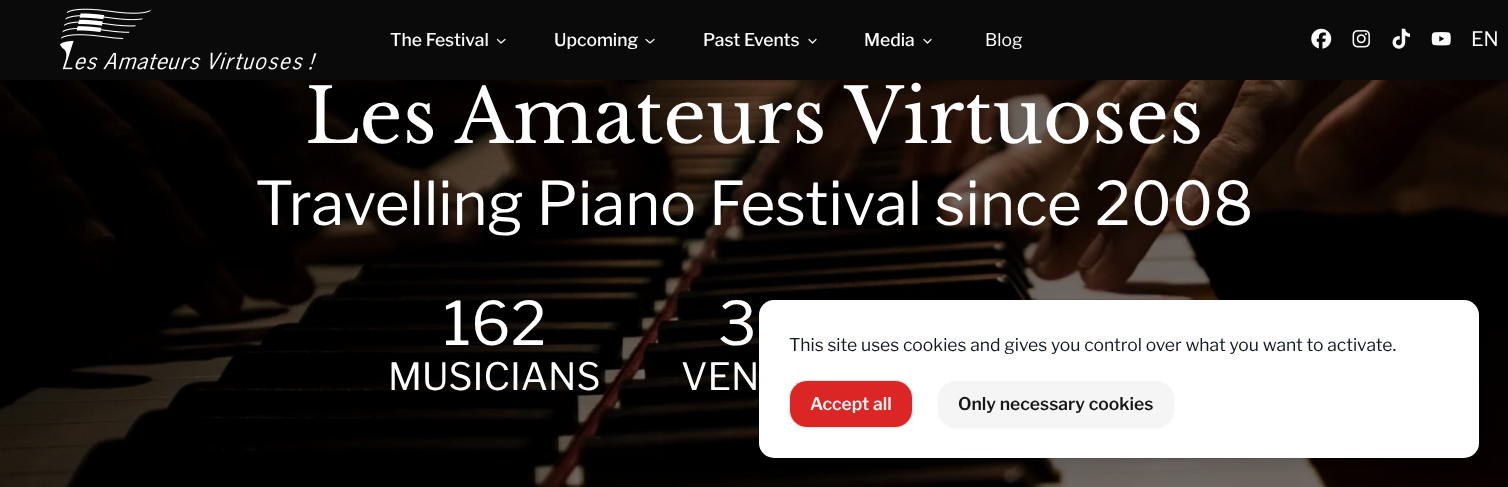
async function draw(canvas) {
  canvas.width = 1508;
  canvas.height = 487;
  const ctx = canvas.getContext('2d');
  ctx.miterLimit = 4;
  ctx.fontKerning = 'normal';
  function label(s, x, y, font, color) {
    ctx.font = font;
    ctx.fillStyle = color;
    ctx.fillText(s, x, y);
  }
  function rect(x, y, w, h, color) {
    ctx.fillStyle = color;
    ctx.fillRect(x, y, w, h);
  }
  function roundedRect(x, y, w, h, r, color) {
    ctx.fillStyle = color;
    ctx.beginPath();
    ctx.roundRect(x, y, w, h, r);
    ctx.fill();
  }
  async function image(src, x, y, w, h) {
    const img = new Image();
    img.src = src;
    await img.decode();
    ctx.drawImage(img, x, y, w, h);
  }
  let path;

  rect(0, 0, 1508, 487, '#fff');
  rect(0, 0, 1508, 80, '#0a0a0a');
  await image('assets/img1.png', 60, 8, 257, 62);
  label('The Festival', 390, 46, '500 17.5px Libre Franklin', '#fff');
  path = new Path2D('M497.5 39.5L501 43L505 39.5');
  ctx.strokeStyle = '#fafafa';
  ctx.lineWidth = 1.2;
  ctx.lineCap = 'round';
  ctx.lineJoin = 'round';
  ctx.stroke(path);
  label('Upcoming', 554, 46, '500 17.5px Libre Franklin', '#fff');
  path = new Path2D('M646 39.5L650 43L654 39.5');
  ctx.stroke(path);
  label('Past Events', 703, 46, '500 17.5px Libre Franklin', '#fff');
  path = new Path2D('M809 39.5L812.5 43L816 39.5');
  ctx.stroke(path);
  label('Media', 864, 46, '500 17.5px Libre Franklin', '#fff');
  path = new Path2D('M924 39.5L927.5 43L931 39.5');
  ctx.stroke(path);
  label('Blog', 985, 46, '17.5px Libre Franklin', '#fff');
  await image('assets/img2.png', 1311, 28, 21, 21);
  await image('assets/img3.png', 1352, 30, 18, 18);
  await image('assets/img4.png', 1392, 28, 18, 21);
  await image('assets/img5.png', 1431, 32, 20, 14);
  label('EN', 1471, 46, '20px Libre Franklin', '#fff');
  await image('assets/img6.png', 0, 80, 1508, 407);
  label('Les Amateurs Virtuoses', 305, 143, '75px Libre Baskerville', '#fff');
  label('Travelling Piano Festival since 2008', 255, 225, '60px Libre Franklin', '#fff');
  label('162', 443, 345, '60px Libre Franklin', '#fff');
  label('MUSICIANS', 388, 390, '37.5px Libre Franklin', '#fff');
  label('3', 718, 345, '60px Libre Franklin', '#fff');
  label('VEN', 681, 390, '37.5px Libre Franklin', '#fff');
  ctx.fillStyle = '#0000001a';
  ctx.filter = 'blur(4px)';
  ctx.beginPath();
  ctx.roundRect(764, 310, 710, 148, 10);
  ctx.fill();
  ctx.filter = 'none';
  ctx.filter = 'blur(9.5px)';
  ctx.beginPath();
  ctx.roundRect(763, 316, 712, 150, 11);
  ctx.fill();
  ctx.filter = 'none';
  ctx.beginPath();
  ctx.roundRect(758.5, 299.5, 721, 159, 15.5);
  ctx.strokeStyle = '#1118271a';
  ctx.lineWidth = 1;
  ctx.lineJoin = 'miter';
  ctx.stroke();
  roundedRect(759, 300, 720, 158, 15, '#fff');
  label('This site uses cookies and gives you control over what you want to activate.', 789, 351, '17.5px Libre Franklin', '#111827');
  ctx.fillStyle = '#0000000d';
  ctx.filter = 'blur(1px)';
  ctx.beginPath();
  ctx.roundRect(789, 381, 124, 48, 18);
  ctx.fill();
  ctx.filter = 'none';
  ctx.fillStyle = '#dc2626';
  ctx.beginPath();
  ctx.roundRect(789.5, 380.5, 123, 47, 17.5);
  ctx.fill();
  ctx.strokeStyle = '#e5e5e5';
  ctx.stroke();
  label('Accept all', 810, 410, '600 17.5px Libre Franklin', '#fef2f2');
  ctx.fillStyle = '#0000000d';
  ctx.filter = 'blur(1px)';
  ctx.beginPath();
  ctx.roundRect(938, 383, 236, 45, 18);
  ctx.fill();
  ctx.filter = 'none';
  roundedRect(938, 381, 236, 45, 18, '#f5f5f5');
  label('Only necessary cookies', 958, 410, '600 17.5px Libre Franklin', '#171717');
}

draw(document.querySelector('canvas'));
